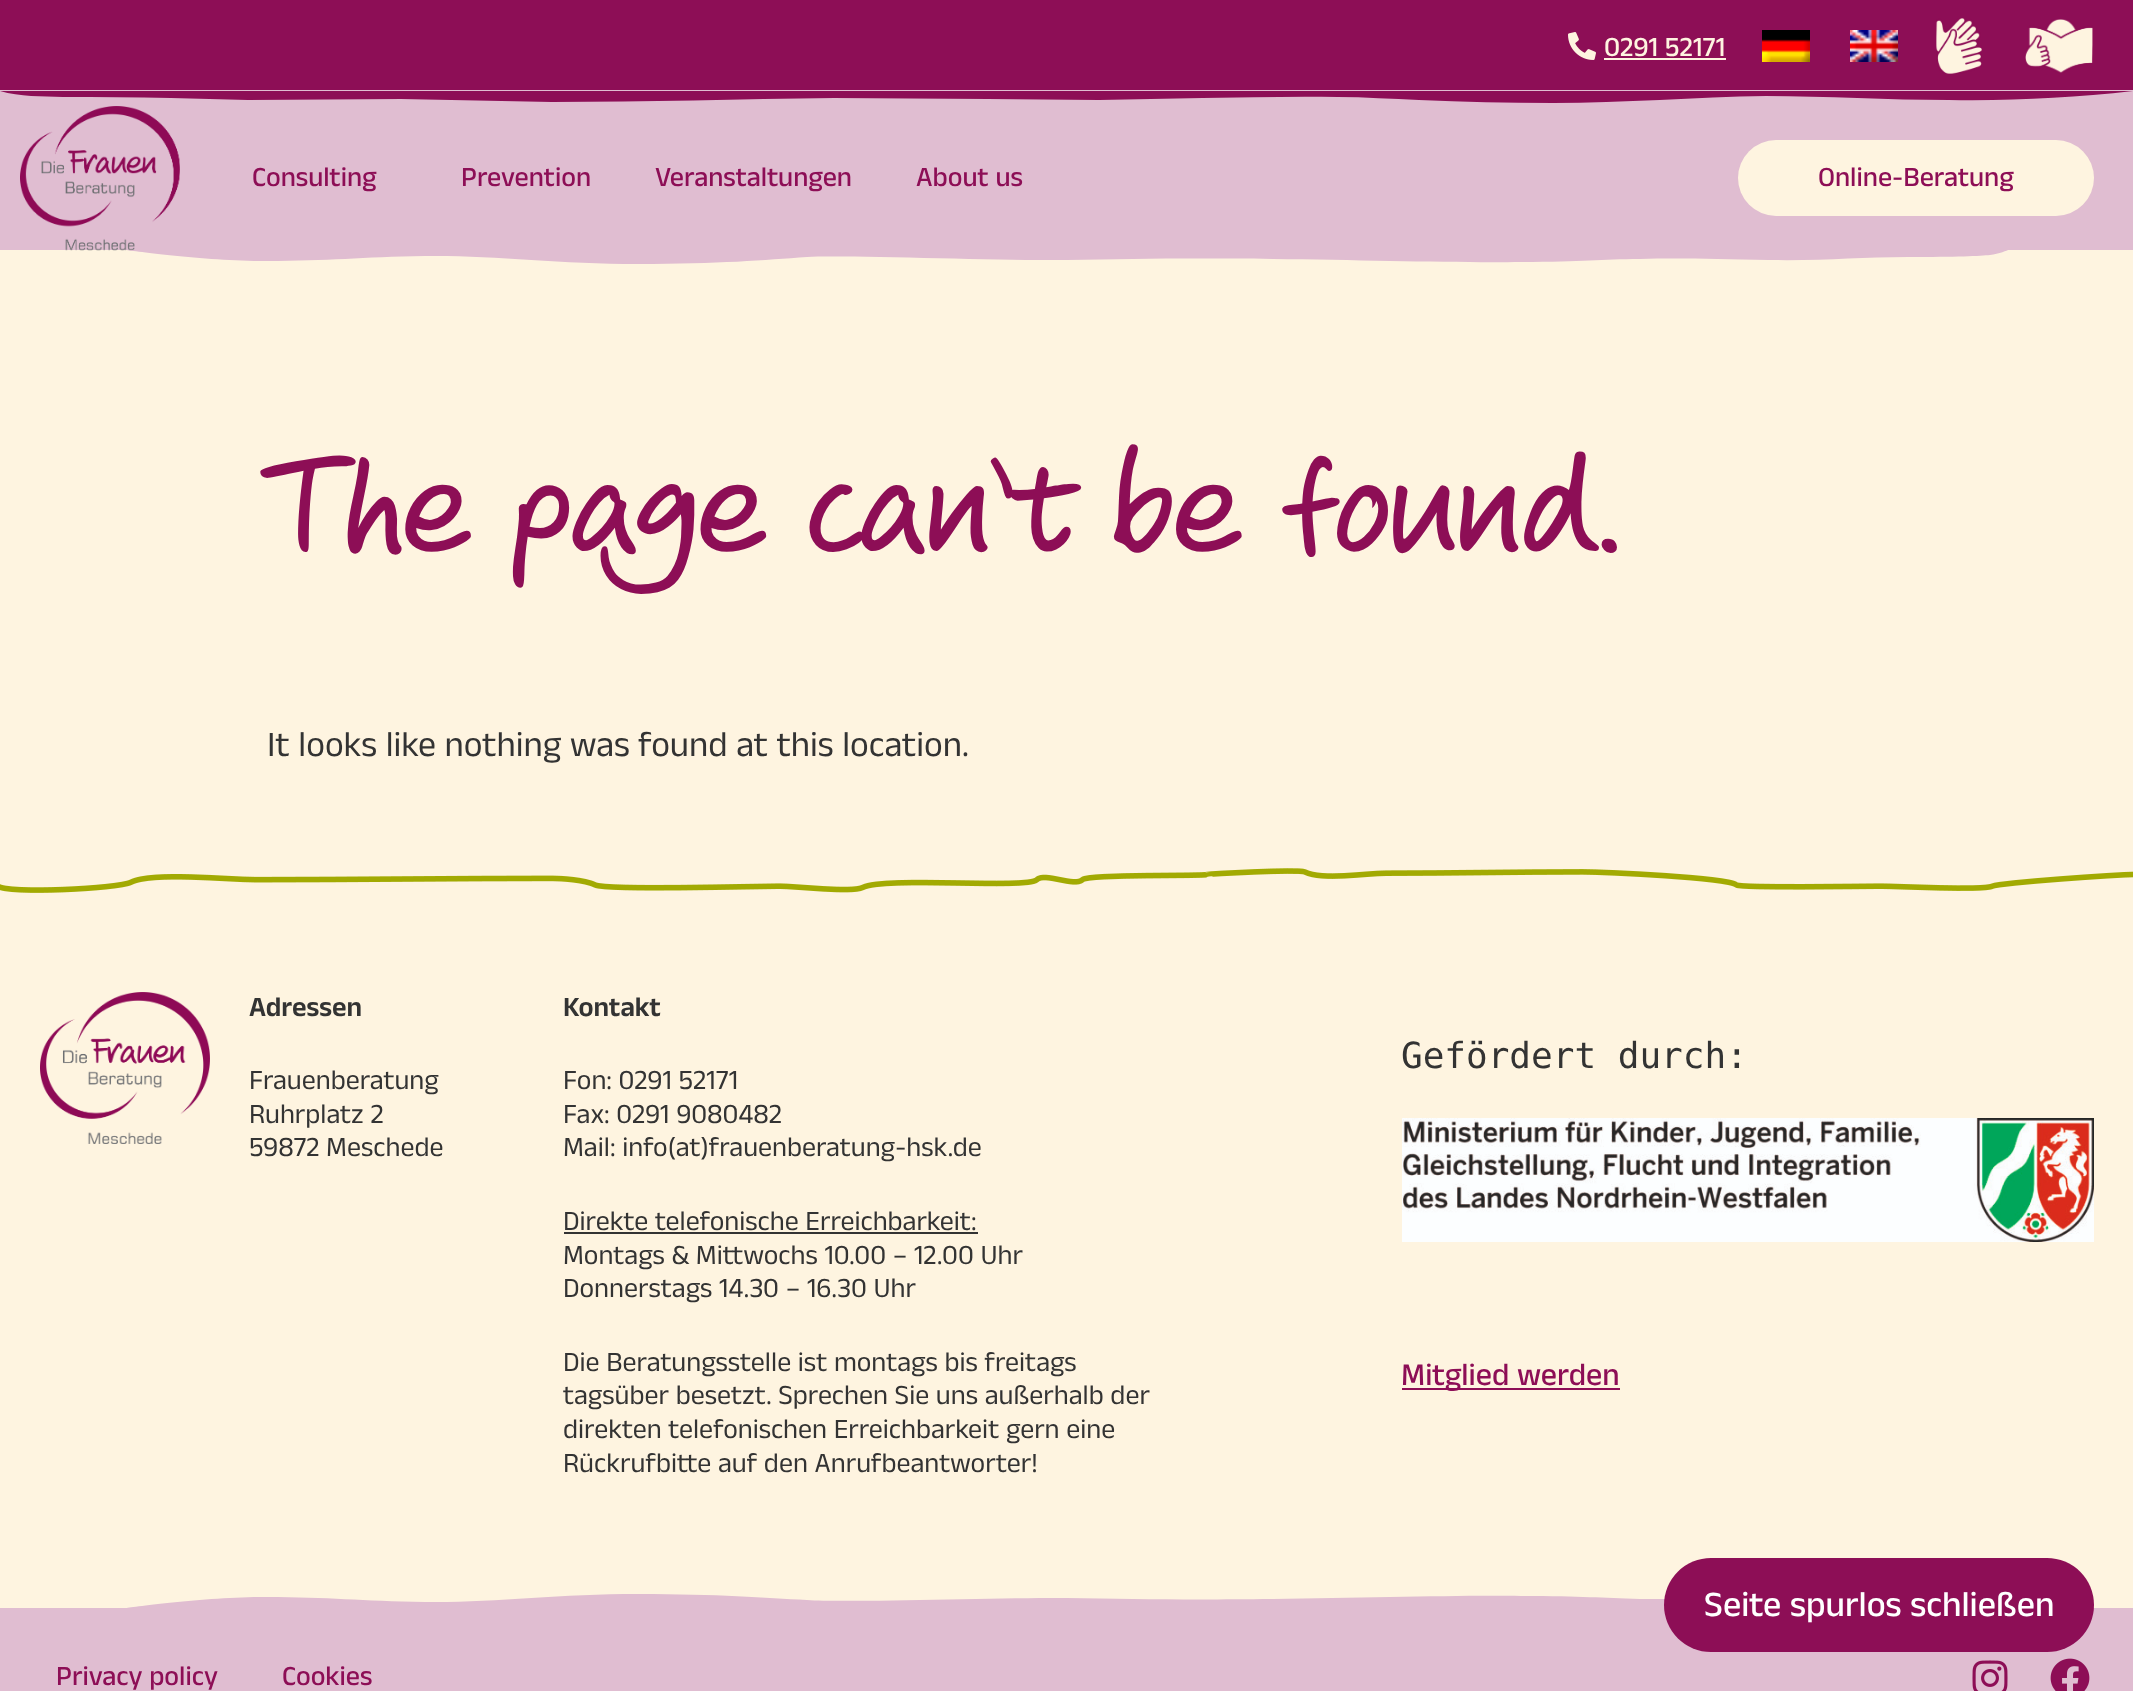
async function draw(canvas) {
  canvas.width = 2133;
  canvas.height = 1691;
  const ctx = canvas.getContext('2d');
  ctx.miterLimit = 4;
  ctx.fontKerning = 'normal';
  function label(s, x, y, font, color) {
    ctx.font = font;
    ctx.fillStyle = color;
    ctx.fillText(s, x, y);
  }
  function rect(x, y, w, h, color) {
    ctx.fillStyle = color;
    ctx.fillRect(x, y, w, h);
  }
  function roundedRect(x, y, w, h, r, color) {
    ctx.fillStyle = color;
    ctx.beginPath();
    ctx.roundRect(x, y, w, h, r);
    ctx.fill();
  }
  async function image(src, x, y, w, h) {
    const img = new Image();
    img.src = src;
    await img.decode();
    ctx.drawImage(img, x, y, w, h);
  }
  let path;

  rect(0, 0, 2133, 1691, '#fef4e0');
  rect(0, 0, 2133, 90, '#8d0e56');
  await image('assets/img1.png', 1568, 32, 28, 28);
  label('0291 52171', 1604, 56, '500 28px Anek Malayalam', '#fef4e0');
  rect(1604, 58, 122, 2, '#fef4e0');
  await image('assets/img2.png', 1762, 30, 48, 32);
  await image('assets/img3.png', 1850, 30, 48, 32);
  await image('assets/img4.png', 1936, 18, 46, 56);
  await image('assets/img5.png', 2025, 19, 68, 54);
  rect(0, 90, 2133, 160, '#e0bdd1');
  ctx.fillStyle = '#8d0e56';
  path = new Path2D('M0 91H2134C2073 98 2011 101 1949 100C1888 100 1827 96 1766 96C1695 97 1624 103 1553 103C1508 103 1463 102 1419 100C1392 99 1365 97 1338 97C1259 96 1179 99 1099 100L988 99L834 98C740 99 646 102 552 102L401 99L248 100L171 98C135 97 99 97 63 97C42 96 20 97 0 91Z');
  ctx.fill(path, 'evenodd');
  await image('assets/img6.png', 20, 106, 160, 145);
  label('Consulting', 252, 186, '500 28px Anek Malayalam', '#8d0e56');
  label('Prevention', 461, 186, '500 28px Anek Malayalam', '#8d0e56');
  label('Veranstaltungen', 655, 186, '500 28px Anek Malayalam', '#8d0e56');
  label('About us', 916, 186, '500 28px Anek Malayalam', '#8d0e56');
  roundedRect(1738, 140, 356, 76, 38, '#fef4e0');
  label('Online-Beratung', 1818, 186, '500 28px Anek Malayalam', '#8d0e56');
  ctx.fillStyle = '#e0bdd1';
  path = new Path2D('M2008 250H126C126 250 203 261 266 261C330 261 360 257 425 256C491 255 557 264 638 264C719 264 765 260 807 257C849 255 1002 261 1067 260C1132 259 1181 258 1273 259C1365 260 1458 263 1521 262C1585 262 1600 259 1640 259C1679 258 1715 259 1769 260C1824 261 1859 257 1908 257C1956 257 1981 256 1990 255C1999 254 2008 250 2008 250Z');
  ctx.fill(path, 'evenodd');
  label('The page can’t be found.', 267, 551, '144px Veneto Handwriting', '#8d0e56');
  label('It looks like nothing was found at this location.', 267, 756, '36px Anek Malayalam', '#333');
  await image('assets/img7.png', 0, 868, 2133, 25);
  await image('assets/img8.png', 40, 992, 170, 152);
  label('Adressen', 249, 1016, '600 28px Anek Malayalam', '#333');
  label('Frauenberatung', 249, 1089, '28px Anek Malayalam', '#333');
  label('Ruhrplatz 2', 249, 1123, '28px Anek Malayalam', '#333');
  label('59872 Meschede', 249, 1156, '28px Anek Malayalam', '#333');
  label('Kontakt', 563, 1016, '600 28px Anek Malayalam', '#333');
  label('Fon: 0291 52171', 563, 1089, '28px Anek Malayalam', '#333');
  label('Fax: 0291 9080482', 563, 1123, '28px Anek Malayalam', '#333');
  label('Mail: info(at)frauenberatung-hsk.de', 563, 1156, '28px Anek Malayalam', '#333');
  label('Direkte telefonische Erreichbarkeit:', 563, 1230, '28px Anek Malayalam', '#333');
  rect(564, 1232, 414, 2, '#333');
  label('Montags & Mittwochs 10.00 – 12.00 Uhr', 563, 1264, '28px Anek Malayalam', '#333');
  label('Donnerstags 14.30 – 16.30 Uhr', 563, 1297, '28px Anek Malayalam', '#333');
  label('Die Beratungsstelle ist montags bis freitags', 563, 1371, '28px Anek Malayalam', '#333');
  label('tagsüber besetzt. Sprechen Sie uns außerhalb der', 563, 1404, '28px Anek Malayalam', '#333');
  label('direkten telefonischen Erreichbarkeit gern eine', 563, 1438, '28px Anek Malayalam', '#333');
  label('Rückrufbitte auf den Anrufbeantworter!', 563, 1472, '28px Anek Malayalam', '#333');
  label('Gefördert durch:', 1401, 1068, '36px DejaVu Sans Mono', '#333');
  await image('assets/img9.png', 1402, 1118, 692, 124);
  rect(1402, 1388, 218, 2, '#8d0e56');
  label('Mitglied werden', 1401, 1385, '500 32px Anek Malayalam', '#8d0e56');
  ctx.fillStyle = '#e0bdd1';
  path = new Path2D('M2008 1608H126C126 1608 203 1597 266 1597C330 1597 360 1601 425 1602C491 1603 557 1594 638 1594C719 1594 765 1598 807 1600C849 1603 1002 1597 1067 1598C1132 1599 1181 1600 1273 1599C1365 1598 1458 1595 1521 1596C1585 1596 1600 1598 1640 1599C1679 1599 1715 1599 1769 1598C1824 1596 1859 1600 1908 1601C1956 1601 1981 1602 1990 1603C1999 1604 2008 1608 2008 1608Z');
  ctx.fill(path, 'evenodd');
  rect(0, 1608, 2133, 83, '#e0bdd1');
  label('Privacy policy', 56, 1685, '500 28px Anek Malayalam', '#8d0e56');
  label('Cookies', 282, 1685, '500 28px Anek Malayalam', '#8d0e56');
  await image('assets/img10.png', 1972, 1660, 36, 31);
  await image('assets/img11.png', 2050, 1658, 40, 33);
  roundedRect(1664, 1558, 430, 94, 47, '#8d0e56');
  label('Seite spurlos schließen', 1704, 1616, '500 36px Anek Malayalam', '#fff');
}

draw(document.querySelector('canvas'));
